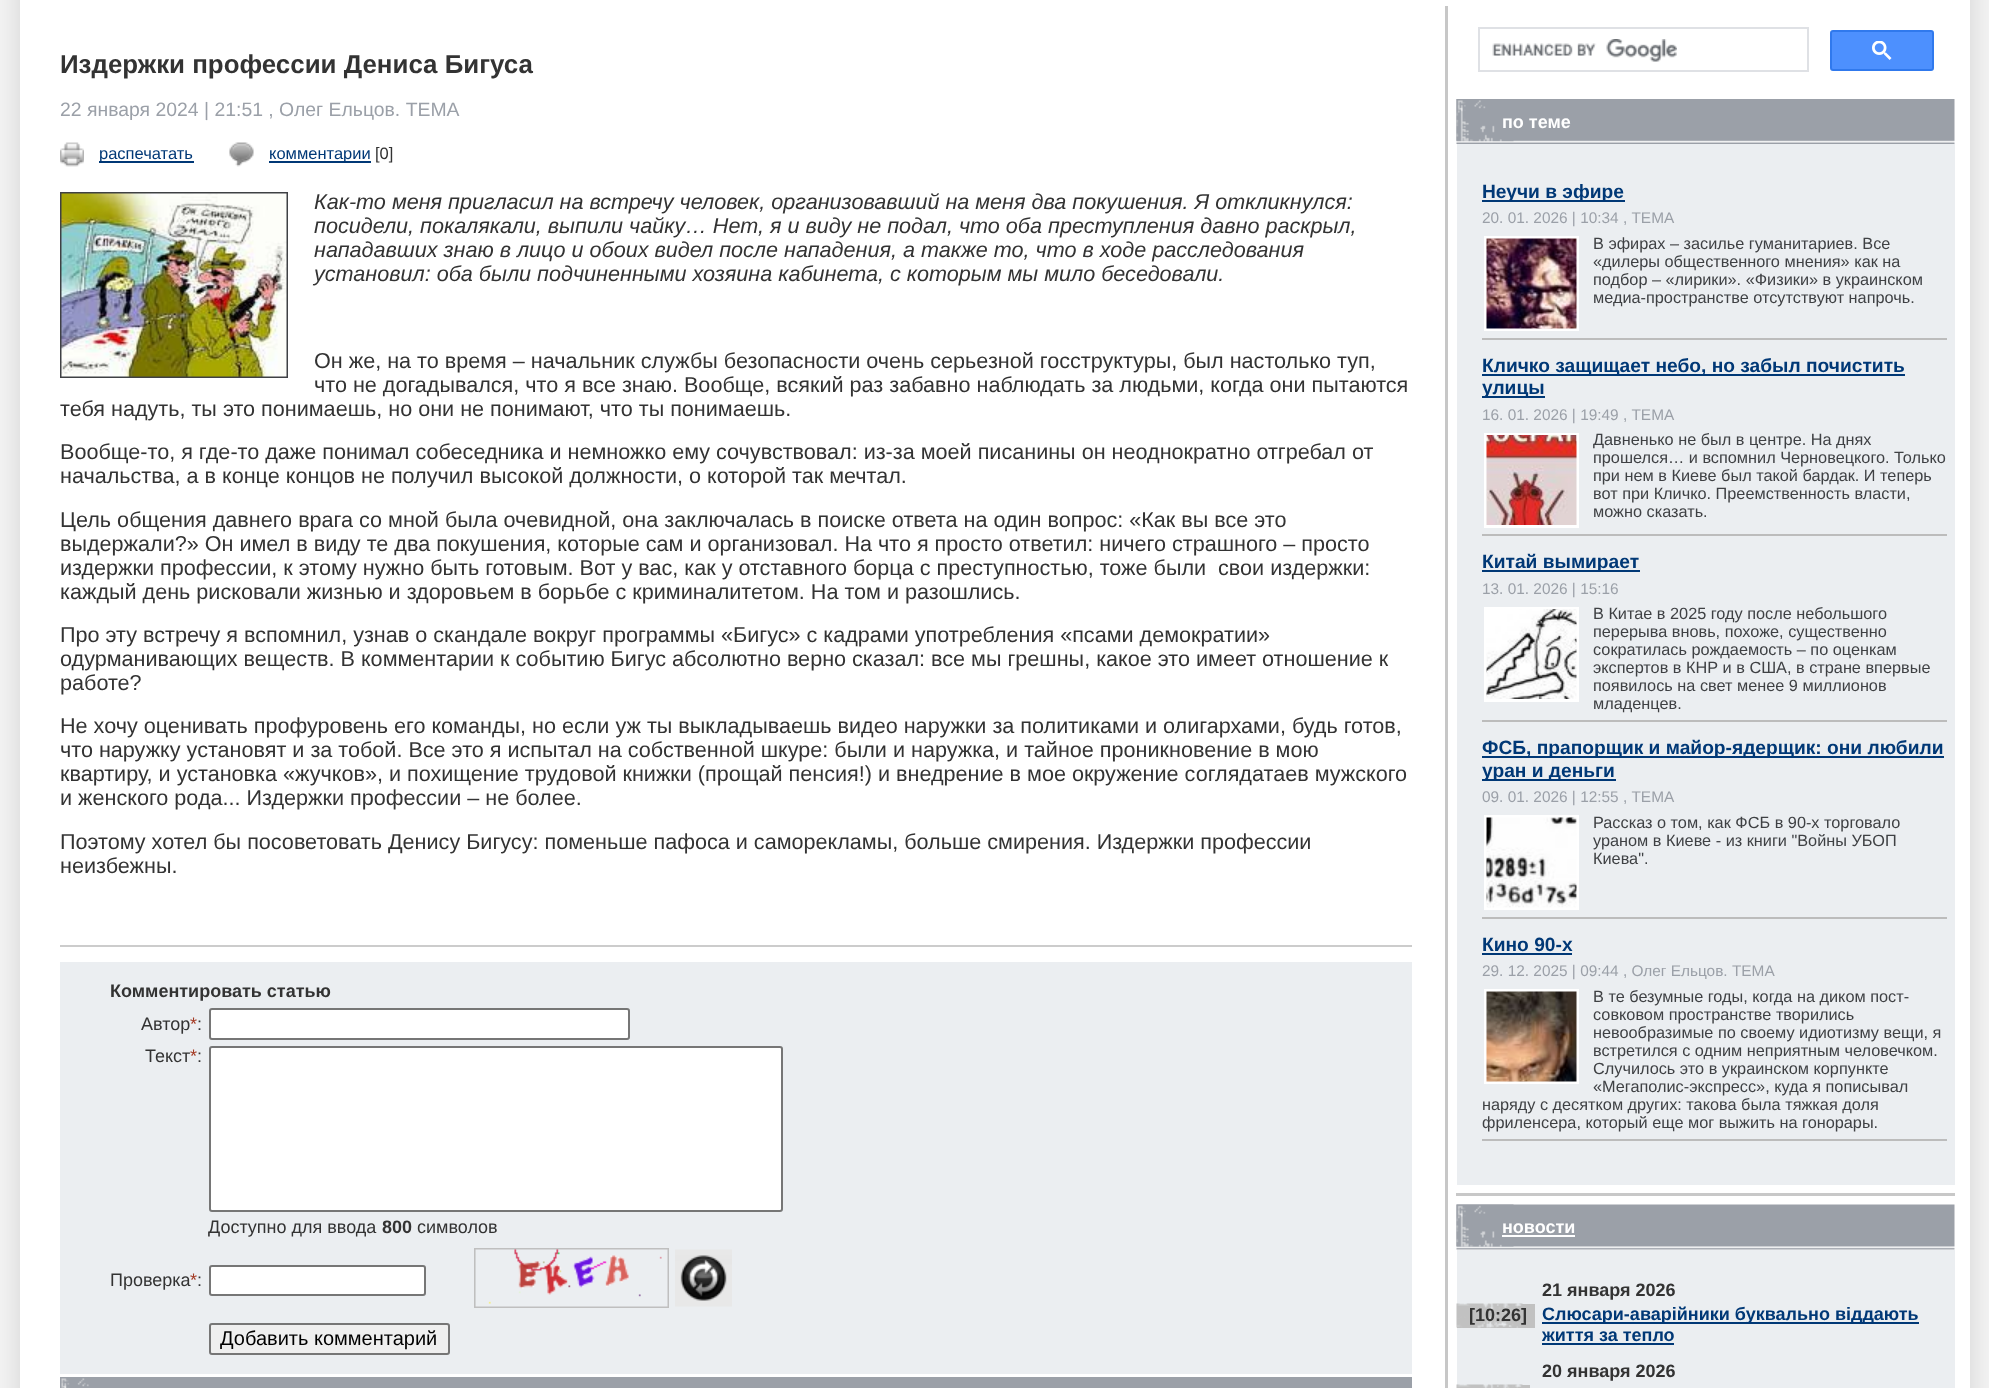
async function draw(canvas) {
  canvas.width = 1989;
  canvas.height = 1388;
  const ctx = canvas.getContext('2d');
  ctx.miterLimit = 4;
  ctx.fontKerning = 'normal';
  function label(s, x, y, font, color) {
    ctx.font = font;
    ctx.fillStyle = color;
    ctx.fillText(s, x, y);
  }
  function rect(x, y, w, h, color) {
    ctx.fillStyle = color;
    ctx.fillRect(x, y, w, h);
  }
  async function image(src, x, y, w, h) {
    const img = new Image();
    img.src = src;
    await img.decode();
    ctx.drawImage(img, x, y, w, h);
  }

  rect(0, 0, 1989, 1388, '#f5f5f5');
  ctx.fillStyle = '#00000024';
  ctx.filter = 'blur(16px)';
  ctx.beginPath();
  ctx.rect(20, -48, 1950, 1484);
  ctx.fill();
  ctx.filter = 'none';
  rect(20, 0, 1950, 1388, '#fff');
  label('Издержки профессии Дениса Бигуса', 60, 73, 'bold 25.9px Liberation Sans', '#333');
  label('22 января 2024 | 21:51 , Олег Ельцов. ТЕМА', 60, 116, '19.4px Liberation Sans', '#9ba0a8');
  await image('assets/img1.png', 60, 142, 24, 25);
  rect(99, 161, 95, 2, '#003876');
  label('распечатать', 99, 159, '16.5px Liberation Sans', '#003876');
  await image('assets/img2.png', 229, 142, 25, 25);
  rect(269, 161, 102, 2, '#003876');
  label('комментарии', 269, 159, '16.5px Liberation Sans', '#003876');
  label('[0]', 375, 159, '16.5px Liberation Sans', '#333');
  ctx.strokeStyle = '#3f4144';
  ctx.lineWidth = 2;
  ctx.strokeRect(61, 193, 226, 184);
  await image('assets/img3.png', 61, 193, 226, 184);
  label('Как-то меня пригласил на встречу человек, организовавший на меня два покушения. Я откликнулся:', 314, 209, 'italic 21.6px Liberation Sans', '#333');
  label('посидели, покалякали, выпили чайку… Нет, я и виду не подал, что оба преступления давно раскрыл,', 314, 233, 'italic 21.6px Liberation Sans', '#333');
  label('нападавших знаю в лицо и обоих видел после нападения, а также то, что в ходе расследования', 314, 257, 'italic 21.6px Liberation Sans', '#333');
  label('установил: оба были подчиненными хозяина кабинета, с которым мы мило беседовали.', 314, 281, 'italic 21.6px Liberation Sans', '#333');
  label('Он же, на то время – начальник службы безопасности очень серьезной госструктуры, был настолько туп,', 314, 368, '21.6px Liberation Sans', '#333');
  label('что не догадывался, что я все знаю. Вообще, всякий раз забавно наблюдать за людьми, когда они пытаются', 314, 392, '21.6px Liberation Sans', '#333');
  label('тебя надуть, ты это понимаешь, но они не понимают, что ты понимаешь.', 60, 416, '21.6px Liberation Sans', '#333');
  label('Вообще-то, я где-то даже понимал собеседника и немножко ему сочувствовал: из-за моей писанины он неоднократно отгребал от', 60, 459, '21.6px Liberation Sans', '#333');
  label('начальства, а в конце концов не получил высокой должности, о которой так мечтал.', 60, 483, '21.6px Liberation Sans', '#333');
  label('Цель общения давнего врага со мной была очевидной, она заключалась в поиске ответа на один вопрос: «Как вы все это', 60, 527, '21.6px Liberation Sans', '#333');
  label('выдержали?» Он имел в виду те два покушения, которые сам и организовал. На что я просто ответил: ничего страшного – просто', 60, 551, '21.6px Liberation Sans', '#333');
  label('издержки профессии, к этому нужно быть готовым. Вот у вас, как у отставного борца с преступностью, тоже были  свои издержки:', 60, 575, '21.6px Liberation Sans', '#333');
  label('каждый день рисковали жизнью и здоровьем в борьбе с криминалитетом. На том и разошлись.', 60, 599, '21.6px Liberation Sans', '#333');
  label('Про эту встречу я вспомнил, узнав о скандале вокруг программы «Бигус» с кадрами употребления «псами демократии»', 60, 642, '21.6px Liberation Sans', '#333');
  label('одурманивающих веществ. В комментарии к событию Бигус абсолютно верно сказал: все мы грешны, какое это имеет отношение к', 60, 666, '21.6px Liberation Sans', '#333');
  label('работе?', 60, 690, '21.6px Liberation Sans', '#333');
  label('Не хочу оценивать профуровень его команды, но если уж ты выкладываешь видео наружки за политиками и олигархами, будь готов,', 60, 733, '21.6px Liberation Sans', '#333');
  label('что наружку установят и за тобой. Все это я испытал на собственной шкуре: были и наружка, и тайное проникновение в мою', 60, 757, '21.6px Liberation Sans', '#333');
  label('квартиру, и установка «жучков», и похищение трудовой книжки (прощай пенсия!) и внедрение в мое окружение соглядатаев мужского', 60, 781, '21.6px Liberation Sans', '#333');
  label('и женского рода... Издержки профессии – не более.', 60, 805, '21.6px Liberation Sans', '#333');
  label('Поэтому хотел бы посоветовать Денису Бигусу: поменьше пафоса и саморекламы, больше смирения. Издержки профессии', 60, 849, '21.6px Liberation Sans', '#333');
  label('неизбежны.', 60, 873, '21.6px Liberation Sans', '#333');
  rect(60, 945, 1352, 2, '#ccc');
  rect(60, 962, 1352, 412, '#ebeef1');
  label('Комментировать статью', 110, 997, 'bold 18px Liberation Sans', '#333');
  label('Автор', 141, 1030, '18px Liberation Sans', '#333');
  label('*', 190, 1030, '18px Liberation Sans', '#a43b25');
  label(':', 197, 1030, '18px Liberation Sans', '#333');
  ctx.fillStyle = '#fff';
  ctx.beginPath();
  ctx.roundRect(210, 1009, 419, 30, 2);
  ctx.fill();
  ctx.strokeStyle = '#767676';
  ctx.stroke();
  label('Текст', 145, 1062, '18px Liberation Sans', '#333');
  label('*', 190, 1062, '18px Liberation Sans', '#a43b25');
  label(':', 197, 1062, '18px Liberation Sans', '#333');
  ctx.fillStyle = '#fff';
  ctx.beginPath();
  ctx.roundRect(210, 1047, 572, 164, 2);
  ctx.fill();
  ctx.stroke();
  label('Доступно для ввода', 208, 1233, '18px Liberation Sans', '#333');
  label('800', 382, 1233, 'bold 18px Liberation Sans', '#333');
  label('символов', 417, 1233, '18px Liberation Sans', '#333');
  label('Проверка', 110, 1286, '18px Liberation Sans', '#333');
  label('*', 190, 1286, '18px Liberation Sans', '#a43b25');
  label(':', 197, 1286, '18px Liberation Sans', '#333');
  ctx.fillStyle = '#fff';
  ctx.beginPath();
  ctx.roundRect(210, 1266, 215, 29, 2);
  ctx.fill();
  ctx.stroke();
  await image('assets/img4.png', 474, 1248, 195, 60);
  await image('assets/img5.png', 675, 1249, 57, 58);
  ctx.fillStyle = '#efefef';
  ctx.beginPath();
  ctx.roundRect(210, 1324, 239, 30, 2);
  ctx.fill();
  ctx.stroke();
  label('Добавить комментарий', 220, 1345, '20px Liberation Sans', '#000');
  rect(60, 1377, 1352, 11, '#9ba0a8');
  await image('assets/img6.png', 61, 1378, 28, 10);
  rect(1445, 6, 3, 1382, '#c7c7c7');
  ctx.strokeStyle = '#dfe1e5';
  ctx.strokeRect(1479, 28, 329, 43);
  await image('assets/img7.png', 1492, 39, 185, 23);
  ctx.fillStyle = '#4d90fe';
  ctx.beginPath();
  ctx.roundRect(1831, 31, 102, 39, 2);
  ctx.fill();
  ctx.strokeStyle = '#3079ed';
  ctx.stroke();
  await image('assets/img8.png', 1872, 41, 20, 19);
  await image('assets/img9.png', 1456, 99, 499, 45);
  await image('assets/img10.png', 1456, 99, 58, 43);
  label('по теме', 1502, 128, 'bold 18px Liberation Sans', '#fff');
  rect(1457, 144, 498, 1041, '#ebeef1');
  rect(1482, 338, 465, 2, '#bcbcbc');
  rect(1482, 200, 143, 2, '#003876');
  label('Неучи в эфире', 1482, 198, 'bold 19.2px Liberation Sans', '#003876');
  label('20. 01. 2026 | 10:34 , ТЕМА', 1482, 223, '15.4px Liberation Sans', '#9ba0a8');
  rect(1484, 236, 95, 95, '#fff');
  await image('assets/img11.png', 1486, 238, 91, 91);
  label('В эфирах – засилье гуманитариев. Все', 1593, 249, '16.3px Liberation Sans', '#3f4144');
  label('«дилеры общественного мнения» как на', 1593, 267, '16.3px Liberation Sans', '#3f4144');
  label('подбор – «лирики». «Физики» в украинском', 1593, 285, '16.3px Liberation Sans', '#3f4144');
  label('медиа-пространстве отсутствуют напрочь.', 1593, 303, '16.3px Liberation Sans', '#3f4144');
  rect(1482, 534, 465, 2, '#bcbcbc');
  rect(1482, 374, 423, 2, '#003876');
  label('Кличко защищает небо, но забыл почистить', 1482, 372, 'bold 19.2px Liberation Sans', '#003876');
  rect(1482, 396, 63, 2, '#003876');
  label('улицы', 1482, 394, 'bold 19.2px Liberation Sans', '#003876');
  label('16. 01. 2026 | 19:49 , ТЕМА', 1482, 420, '15.4px Liberation Sans', '#9ba0a8');
  rect(1484, 433, 95, 95, '#fff');
  await image('assets/img12.png', 1486, 435, 91, 90);
  label('Давненько не был в центре. На днях', 1593, 445, '16.3px Liberation Sans', '#3f4144');
  label('прошелся… и вспомнил Черновецкого. Только', 1593, 463, '16.3px Liberation Sans', '#3f4144');
  label('при нем в Киеве был такой бардак. И теперь', 1593, 481, '16.3px Liberation Sans', '#3f4144');
  label('вот при Кличко. Преемственность власти,', 1593, 499, '16.3px Liberation Sans', '#3f4144');
  label('можно сказать.', 1593, 517, '16.3px Liberation Sans', '#3f4144');
  rect(1482, 720, 465, 2, '#bcbcbc');
  rect(1482, 570, 158, 2, '#003876');
  label('Китай вымирает', 1482, 568, 'bold 19.2px Liberation Sans', '#003876');
  label('13. 01. 2026 | 15:16', 1482, 594, '15.4px Liberation Sans', '#9ba0a8');
  rect(1484, 607, 95, 95, '#fff');
  await image('assets/img13.png', 1486, 609, 91, 90);
  label('В Китае в 2025 году после небольшого', 1593, 619, '16.3px Liberation Sans', '#3f4144');
  label('перерыва вновь, похоже, существенно', 1593, 637, '16.3px Liberation Sans', '#3f4144');
  label('сократилась рождаемость – по оценкам', 1593, 655, '16.3px Liberation Sans', '#3f4144');
  label('экспертов в КНР и в США, в стране впервые', 1593, 673, '16.3px Liberation Sans', '#3f4144');
  label('появилось на свет менее 9 миллионов', 1593, 691, '16.3px Liberation Sans', '#3f4144');
  label('младенцев.', 1593, 709, '16.3px Liberation Sans', '#3f4144');
  rect(1482, 917, 465, 2, '#bcbcbc');
  rect(1482, 756, 462, 2, '#003876');
  label('ФСБ, прапорщик и майор-ядерщик: они любили', 1482, 754, 'bold 19.2px Liberation Sans', '#003876');
  rect(1482, 779, 134, 2, '#003876');
  label('уран и деньги', 1482, 777, 'bold 19.2px Liberation Sans', '#003876');
  label('09. 01. 2026 | 12:55 , ТЕМА', 1482, 802, '15.4px Liberation Sans', '#9ba0a8');
  rect(1484, 815, 95, 95, '#fff');
  await image('assets/img14.png', 1486, 817, 91, 91);
  label('Рассказ о том, как ФСБ в 90-х торговало', 1593, 828, '16.3px Liberation Sans', '#3f4144');
  label('ураном в Киеве - из книги "Войны УБОП', 1593, 846, '16.3px Liberation Sans', '#3f4144');
  label('Киева".', 1593, 864, '16.3px Liberation Sans', '#3f4144');
  rect(1482, 1139, 465, 2, '#bcbcbc');
  label('Кино 90-х', 1482, 951, 'bold 19.2px Liberation Sans', '#003876');
  rect(1482, 953, 90, 2, '#003876');
  label('29. 12. 2025 | 09:44 , Олег Ельцов. ТЕМА', 1482, 976, '15.4px Liberation Sans', '#9ba0a8');
  rect(1484, 989, 95, 95, '#fff');
  await image('assets/img15.png', 1486, 991, 91, 91);
  label('В те безумные годы, когда на диком пост-', 1593, 1002, '16.3px Liberation Sans', '#3f4144');
  label('совковом пространстве творились', 1593, 1020, '16.3px Liberation Sans', '#3f4144');
  label('невообразимые по своему идиотизму вещи, я', 1593, 1038, '16.3px Liberation Sans', '#3f4144');
  label('встретился с одним неприятным человечком.', 1593, 1056, '16.3px Liberation Sans', '#3f4144');
  label('Случилось это в украинском корпункте', 1593, 1074, '16.3px Liberation Sans', '#3f4144');
  label('«Мегаполис-экспресс», куда я пописывал', 1593, 1092, '16.3px Liberation Sans', '#3f4144');
  label('наряду с десятком других: такова была тяжкая доля', 1482, 1110, '16.3px Liberation Sans', '#3f4144');
  label('фриленсера, который еще мог выжить на гонорары.', 1482, 1128, '16.3px Liberation Sans', '#3f4144');
  rect(1456, 1193, 499, 3, '#c8c8c8');
  await image('assets/img16.png', 1456, 1204, 499, 46);
  await image('assets/img17.png', 1456, 1204, 58, 43);
  label('новости', 1502, 1233, 'bold 18px Liberation Sans', '#fff');
  rect(1502, 1235, 73, 2, '#fff');
  rect(1457, 1250, 498, 138, '#ebeef1');
  label('21 января 2026', 1542, 1296, 'bold 18px Liberation Sans', '#333');
  rect(1457, 1304, 78, 24, '#c1c1c1');
  await image('assets/img18.png', 1456, 1303, 67, 25);
  label('[10:26]', 1469, 1321, 'bold 18px Liberation Sans', '#333');
  rect(1542, 1322, 377, 2, '#003876');
  label('Слюсари-аварійники буквально віддають', 1542, 1320, 'bold 18px Liberation Sans', '#003876');
  label('життя за тепло', 1542, 1341, 'bold 18px Liberation Sans', '#003876');
  rect(1542, 1343, 132, 2, '#003876');
  label('20 января 2026', 1542, 1377, 'bold 18px Liberation Sans', '#333');
  rect(1522, 1385, 8, 3, '#c1c1c1');
  await image('assets/img19.png', 1456, 1384, 67, 4);
}

draw(document.querySelector('canvas'));
